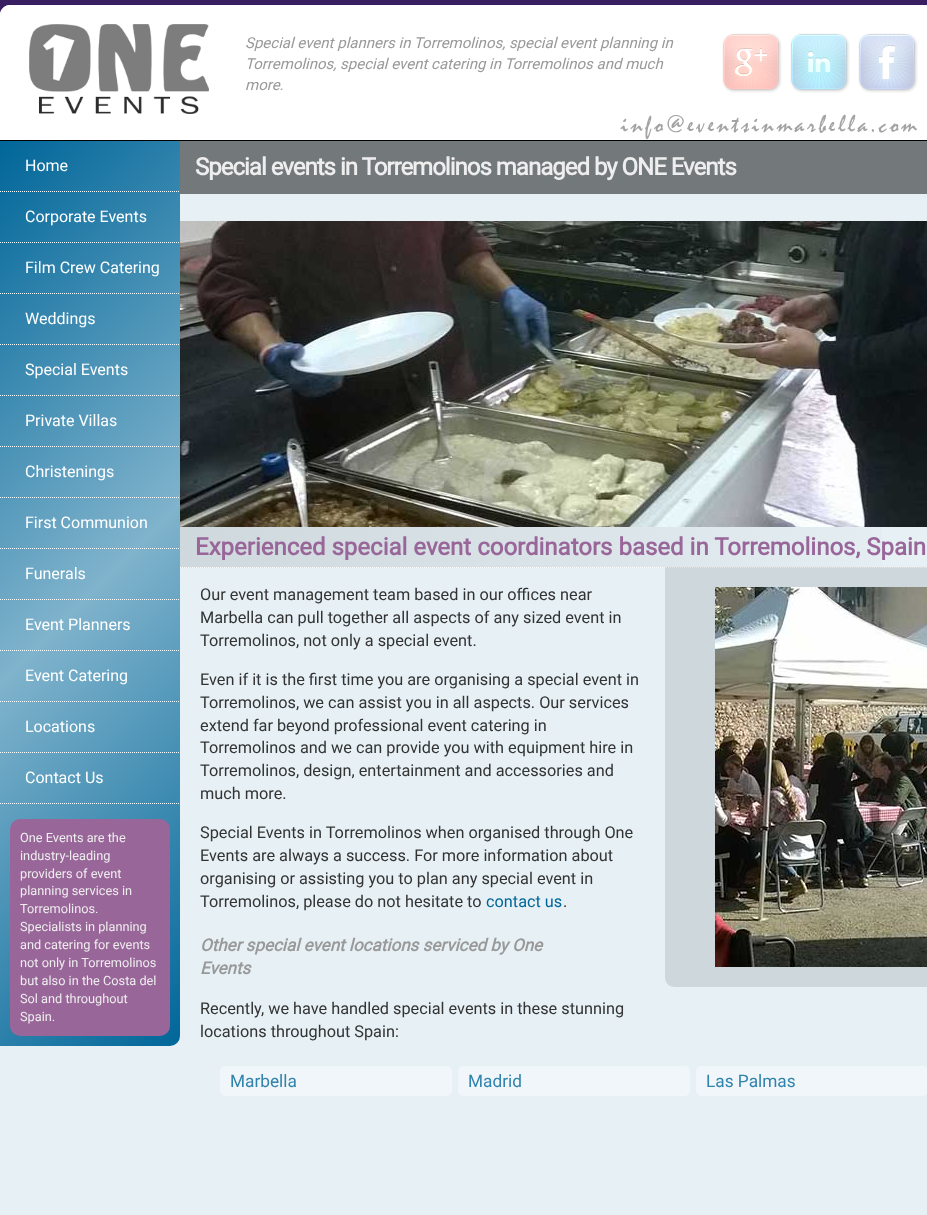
async function draw(canvas) {
  canvas.width = 927;
  canvas.height = 1215;
  const ctx = canvas.getContext('2d');
  ctx.miterLimit = 4;
  ctx.fontKerning = 'normal';
  function label(s, x, y, font, color) {
    ctx.font = font;
    ctx.fillStyle = color;
    ctx.fillText(s, x, y);
  }
  function rect(x, y, w, h, color) {
    ctx.fillStyle = color;
    ctx.fillRect(x, y, w, h);
  }
  function roundedRect(x, y, w, h, r, color) {
    ctx.fillStyle = color;
    ctx.beginPath();
    ctx.roundRect(x, y, w, h, r);
    ctx.fill();
  }
  async function image(src, x, y, w, h) {
    const img = new Image();
    img.src = src;
    await img.decode();
    ctx.drawImage(img, x, y, w, h);
  }
  let gradient, path;

  rect(0, 0, 927, 1215, '#fff');
  gradient = ctx.createLinearGradient(463, 0, 464, 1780);
  gradient.addColorStop(0.17, '#3a1e62');
  gradient.addColorStop(0.57, '#adadad');
  gradient.addColorStop(0.61, '#acacac');
  gradient.addColorStop(1, '#3a1e62');
  ctx.fillStyle = gradient;
  ctx.fillRect(0, 0, 927, 15);
  ctx.fillStyle = '#e6f0f5';
  path = new Path2D('M10 5H927C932.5 5 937 9.5 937 15V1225H0V15C0 9.5 4.5 5 10 5Z');
  ctx.fill(path);
  rect(180, 141, 747, 53, '#73787b');
  ctx.fillStyle = '#fff';
  path = new Path2D('M10 5H927C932.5 5 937 9.5 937 15V141H0V15C0 9.5 4.5 5 10 5Z');
  ctx.fill(path);
  rect(0, 140, 927, 1, '#000');
  await image('assets/img1.png', 29, 24, 180, 90);
  label('Special event planners in Torremolinos, special event planning in', 245, 48, 'italic 15px Roboto', '#999');
  label('Torremolinos, special event catering in Torremolinos and much', 245, 69, 'italic 15px Roboto', '#999');
  label('more.', 245, 90, 'italic 15px Roboto', '#999');
  await image('assets/img2.png', 722, 33, 60, 60);
  await image('assets/img3.png', 790, 33, 60, 60);
  await image('assets/img4.png', 858, 33, 60, 60);
  await image('assets/img5.png', 620, 114, 297, 26);
  gradient = ctx.createLinearGradient(-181, 322, 361, 865);
  gradient.addColorStop(0, '#069');
  gradient.addColorStop(0.5, '#80b3cc');
  gradient.addColorStop(1, '#069');
  ctx.fillStyle = gradient;
  ctx.beginPath();
  ctx.roundRect(0, 141, 180, 905, [0, 0, 10, 0]);
  ctx.fill();
  path = new Path2D('M0 191.5H180');
  ctx.strokeStyle = '#fff';
  ctx.setLineDash([1, 1]);
  ctx.stroke(path);
  label('Home', 25, 171, '16px Roboto', '#fff');
  path = new Path2D('M0 242.5H180');
  ctx.stroke(path);
  label('Corporate Events', 25, 222, '16px Roboto', '#fff');
  path = new Path2D('M0 293.5H180');
  ctx.stroke(path);
  label('Film Crew Catering', 25, 273, '16px Roboto', '#fff');
  path = new Path2D('M0 344.5H180');
  ctx.stroke(path);
  label('Weddings', 25, 324, '16px Roboto', '#fff');
  path = new Path2D('M0 395.5H180');
  ctx.stroke(path);
  label('Special Events', 25, 375, '16px Roboto', '#fff');
  path = new Path2D('M0 446.5H180');
  ctx.stroke(path);
  label('Private Villas', 25, 426, '16px Roboto', '#fff');
  path = new Path2D('M0 497.5H180');
  ctx.stroke(path);
  label('Christenings', 25, 477, '16px Roboto', '#fff');
  path = new Path2D('M0 548.5H180');
  ctx.stroke(path);
  label('First Communion', 25, 528, '16px Roboto', '#fff');
  path = new Path2D('M0 599.5H180');
  ctx.stroke(path);
  label('Funerals', 25, 579, '16px Roboto', '#fff');
  path = new Path2D('M0 650.5H180');
  ctx.stroke(path);
  label('Event Planners', 25, 630, '16px Roboto', '#fff');
  path = new Path2D('M0 701.5H180');
  ctx.stroke(path);
  label('Event Catering', 25, 681, '16px Roboto', '#fff');
  path = new Path2D('M0 752.5H180');
  ctx.stroke(path);
  label('Locations', 25, 732, '16px Roboto', '#fff');
  path = new Path2D('M0 803.5H180');
  ctx.stroke(path);
  label('Contact Us', 25, 783, '16px Roboto', '#fff');
  roundedRect(10, 819, 160, 217, 10, '#969');
  label('One Events are the', 20, 842, '12.75px Roboto', '#eee');
  label('industry-leading', 20, 860, '12.75px Roboto', '#eee');
  label('providers of event', 20, 878, '12.75px Roboto', '#eee');
  label('planning services in', 20, 895, '12.75px Roboto', '#eee');
  label('Torremolinos.', 20, 913, '12.75px Roboto', '#eee');
  label('Specialists in planning', 20, 931, '12.75px Roboto', '#eee');
  label('and catering for events', 20, 949, '12.75px Roboto', '#eee');
  label('not only in Torremolinos', 20, 967, '12.75px Roboto', '#eee');
  label('but also in the Costa del', 20, 985, '12.75px Roboto', '#eee');
  label('Sol and throughout', 20, 1003, '12.75px Roboto', '#eee');
  label('Spain.', 20, 1021, '12.75px Roboto', '#eee');
  ctx.letterSpacing = '-1px';
  label('Special events in Torremolinos managed by ONE Events', 195, 175, 'bold 24px Roboto', '#eee');
  await image('assets/img6.png', 180, 221, 747, 306);
  gradient = ctx.createLinearGradient(180, 547, 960, 547);
  gradient.addColorStop(0, '#cfd8dc');
  gradient.addColorStop(1, '#e6f0f5');
  ctx.fillStyle = gradient;
  ctx.fillRect(180, 527, 702, 41);
  path = new Path2D('M180 567.5H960');
  ctx.stroke(path);
  ctx.letterSpacing = '0px';
  label('Experienced special event coordinators based in Torremolinos, Spain', 195, 555, 'bold 24px Roboto', '#969');
  label('Our event management team based in our offices near', 200, 600, '16.3px Roboto', '#333');
  label('Marbella can pull together all aspects of any sized event in', 200, 623, '16.3px Roboto', '#333');
  label('Torremolinos, not only a special event.', 200, 646, '16.3px Roboto', '#333');
  ctx.fillStyle = '#0000001a';
  path = new Path2D('M665 567H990V987H675C669 987 665 983 665 977ZM715 587H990V967H715Z');
  ctx.fill(path, 'evenodd');
  await image('assets/img7.png', 715, 587, 212, 380);
  label('Even if it is the first time you are organising a special event in', 200, 685, '16.3px Roboto', '#333');
  label('Torremolinos, we can assist you in all aspects. Our services', 200, 708, '16.3px Roboto', '#333');
  label('extend far beyond professional event catering in', 200, 731, '16.3px Roboto', '#333');
  label('Torremolinos and we can provide you with equipment hire in', 200, 753, '16.3px Roboto', '#333');
  label('Torremolinos, design, entertainment and accessories and', 200, 776, '16.3px Roboto', '#333');
  label('much more.', 200, 799, '16.3px Roboto', '#333');
  label('Special Events in Torremolinos when organised through One', 200, 838, '16.3px Roboto', '#333');
  label('Events are always a success. For more information about', 200, 861, '16.3px Roboto', '#333');
  label('organising or assisting you to plan any special event in', 200, 884, '16.3px Roboto', '#333');
  label('Torremolinos, please do not hesitate to', 200, 907, '16.3px Roboto', '#333');
  label('contact us', 486, 907, '16.3px Roboto', '#069');
  label('.', 563, 907, '16.3px Roboto', '#333');
  label('Other special event locations serviced by One', 200, 951, 'italic bold 17px Roboto', '#999');
  label('Events', 200, 974, 'italic bold 17px Roboto', '#999');
  label('Recently, we have handled special events in these stunning', 200, 1014, '16.3px Roboto', '#333');
  label('locations throughout Spain:', 200, 1037, '16.3px Roboto', '#333');
  roundedRect(220, 1066, 232, 30, 5, '#f0f6f9');
  label('Marbella', 230, 1087, '17.25px Roboto', '#3083ac');
  roundedRect(458, 1066, 232, 30, 5, '#f0f6f9');
  label('Madrid', 468, 1087, '17.25px Roboto', '#3083ac');
  roundedRect(696, 1066, 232, 30, 5, '#f0f6f9');
  label('Las Palmas', 706, 1087, '17.25px Roboto', '#3083ac');
}

draw(document.querySelector('canvas'));
